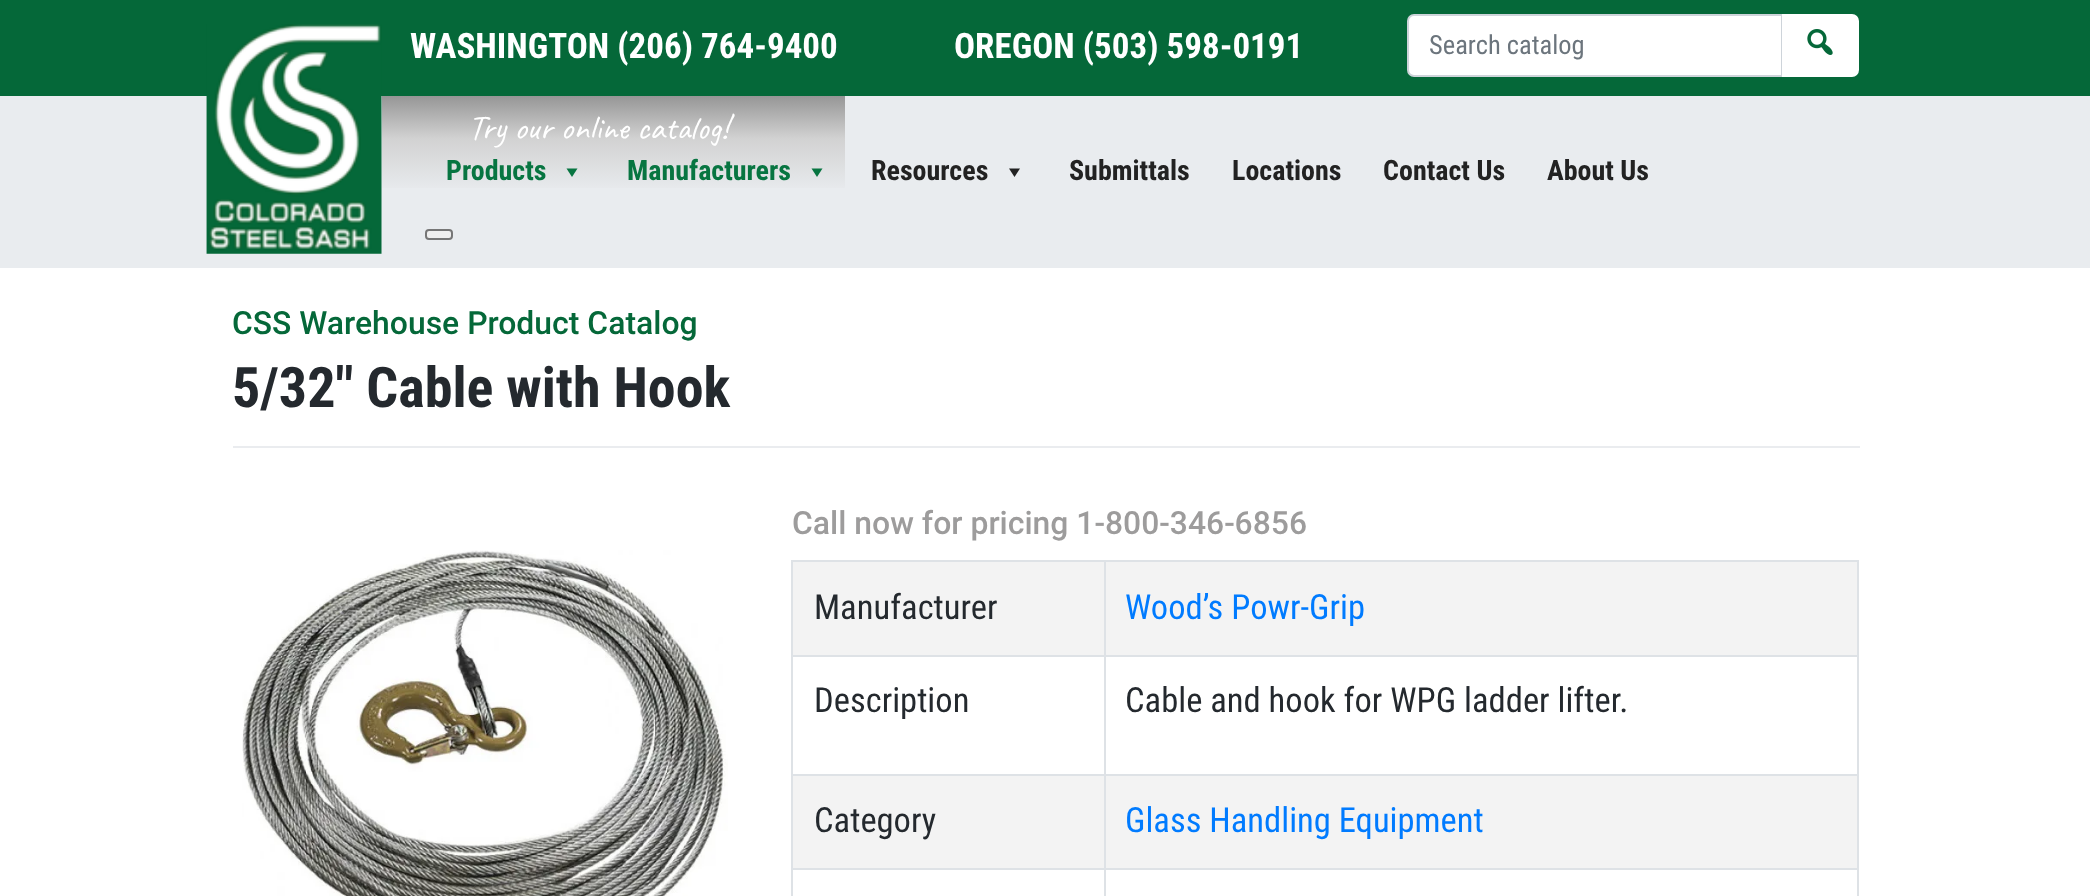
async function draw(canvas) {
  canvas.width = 2090;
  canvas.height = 896;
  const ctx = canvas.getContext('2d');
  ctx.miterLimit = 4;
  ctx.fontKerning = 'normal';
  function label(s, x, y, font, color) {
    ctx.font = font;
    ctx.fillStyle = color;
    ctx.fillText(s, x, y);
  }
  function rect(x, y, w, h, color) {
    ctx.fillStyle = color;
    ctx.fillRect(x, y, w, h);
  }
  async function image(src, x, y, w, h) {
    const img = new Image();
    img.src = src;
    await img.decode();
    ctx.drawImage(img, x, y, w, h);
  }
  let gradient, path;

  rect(0, 0, 2090, 896, '#fff');
  rect(0, 0, 2090, 96, '#056839');
  label('WASHINGTON (206) 764-9400', 410, 58, 'bold 35px Roboto Condensed', '#fff');
  label('OREGON (503) 598-0191', 954, 58, 'bold 35px Roboto Condensed', '#fff');
  ctx.beginPath();
  ctx.roundRect(1408, 15, 374, 61, [6, 0, 0, 6]);
  ctx.fill();
  ctx.strokeStyle = '#ced4da';
  ctx.lineWidth = 2;
  ctx.stroke();
  label('Search catalog', 1429, 54, '26.5px Roboto Condensed', '#6c757d');
  ctx.fillStyle = '#fff';
  ctx.beginPath();
  ctx.roundRect(1783, 15, 75, 61, [0, 6, 6, 0]);
  ctx.fill();
  ctx.strokeStyle = '#fff';
  ctx.stroke();
  await image('assets/img1.png', 1807, 29, 26, 26);
  rect(0, 96, 2090, 172, '#e9ecef');
  gradient = ctx.createLinearGradient(613, 96, 613, 193);
  gradient.addColorStop(0, '#969696');
  gradient.addColorStop(0.44, '#d2d2d2');
  gradient.addColorStop(1, '#e9ecef');
  ctx.fillStyle = gradient;
  ctx.fillRect(382, 96, 463, 92);
  label('Try our online catalog!', 468, 139, '35px Caveat', '#fff');
  await image('assets/img2.png', 206, 24, 176, 230);
  label('Products', 446, 180, 'bold 28px Roboto Condensed', '#077541');
  path = new Path2D('M577.5 168.5L572 177L566.5 168.5Z');
  ctx.fill(path);
  label('Manufacturers', 627, 180, 'bold 28px Roboto Condensed', '#077541');
  path = new Path2D('M822.5 168.5L817 177L811.5 168.5Z');
  ctx.fill(path);
  label('Resources', 871, 180, 'bold 28px Roboto Condensed', '#222');
  path = new Path2D('M1020 168.5L1014.5 177L1009 168.5Z');
  ctx.fill(path);
  label('Submittals', 1069, 180, 'bold 28px Roboto Condensed', '#222');
  label('Locations', 1232, 180, 'bold 28px Roboto Condensed', '#222');
  label('Contact Us', 1383, 180, 'bold 28px Roboto Condensed', '#222');
  label('About Us', 1547, 180, 'bold 28px Roboto Condensed', '#222');
  ctx.fillStyle = '#efefef';
  ctx.beginPath();
  ctx.roundRect(426, 230, 26, 9, 3);
  ctx.fill();
  ctx.strokeStyle = '#767676';
  ctx.stroke();
  label('CSS Warehouse Product Catalog', 232, 334, '500 31.9px Roboto', '#056839');
  rect(233, 446, 1627, 2, '#eaecef');
  label('5/32″ Cable with Hook', 232, 407, 'bold 56px Roboto Condensed', '#24292e');
  await image('assets/img3.png', 242, 550, 486, 346);
  label('Call now for pricing 1-800-346-6856', 792, 534, '500 31.9px Roboto', '#9d9c9c');
  rect(793, 562, 1064, 93, '#f3f3f3');
  rect(1104, 560, 755, 2, '#dee2e6');
  rect(1104, 655, 755, 2, '#dee2e6');
  rect(1104, 774, 755, 2, '#dee2e6');
  rect(793, 776, 1064, 92, '#f3f3f3');
  rect(1104, 868, 755, 2, '#dee2e6');
  rect(1104, 868, 2, 28, '#dee2e6');
  rect(791, 868, 315, 2, '#dee2e6');
  rect(1104, 774, 2, 96, '#dee2e6');
  rect(791, 774, 315, 2, '#dee2e6');
  rect(1104, 655, 2, 120, '#dee2e6');
  rect(791, 655, 315, 2, '#dee2e6');
  rect(1104, 560, 2, 96, '#dee2e6');
  rect(791, 560, 315, 2, '#dee2e6');
  rect(791, 868, 2, 28, '#dee2e6');
  rect(791, 774, 2, 96, '#dee2e6');
  rect(791, 655, 2, 120, '#dee2e6');
  rect(791, 560, 2, 96, '#dee2e6');
  label('Manufacturer', 814, 619, '34.6px Roboto Condensed', '#24292e');
  rect(1857, 868, 2, 28, '#dee2e6');
  rect(1857, 774, 2, 96, '#dee2e6');
  rect(1857, 655, 2, 120, '#dee2e6');
  rect(1857, 560, 2, 96, '#dee2e6');
  label('Wood’s Powr-Grip', 1125, 619, '34.6px Roboto Condensed', '#007bff');
  label('Description', 814, 712, '34.6px Roboto Condensed', '#24292e');
  label('Cable and hook for WPG ladder lifter.', 1125, 712, '34.6px Roboto Condensed', '#24292e');
  label('Category', 814, 832, '34.6px Roboto Condensed', '#24292e');
  label('Glass Handling Equipment', 1125, 832, '34.6px Roboto Condensed', '#007bff');
}

draw(document.querySelector('canvas'));
